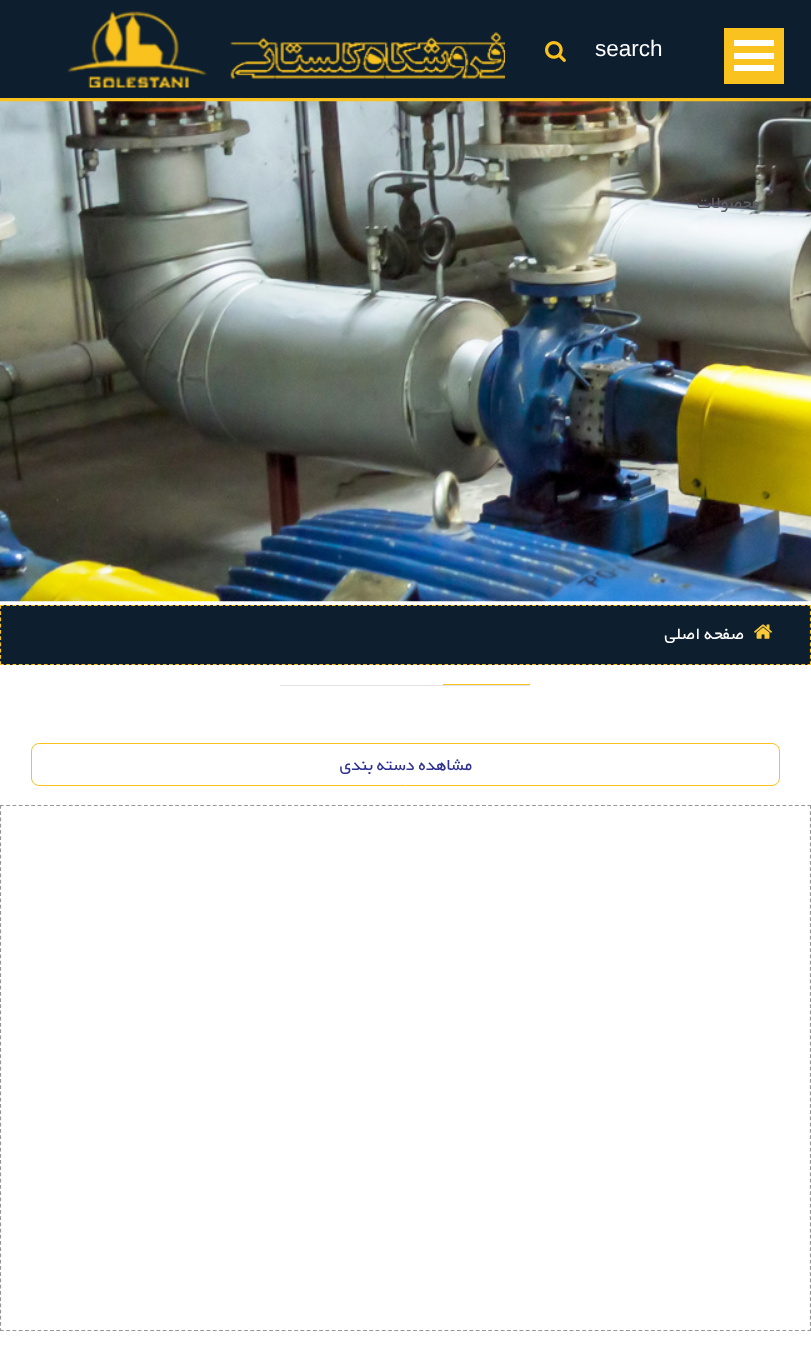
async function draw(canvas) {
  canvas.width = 811;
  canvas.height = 1346;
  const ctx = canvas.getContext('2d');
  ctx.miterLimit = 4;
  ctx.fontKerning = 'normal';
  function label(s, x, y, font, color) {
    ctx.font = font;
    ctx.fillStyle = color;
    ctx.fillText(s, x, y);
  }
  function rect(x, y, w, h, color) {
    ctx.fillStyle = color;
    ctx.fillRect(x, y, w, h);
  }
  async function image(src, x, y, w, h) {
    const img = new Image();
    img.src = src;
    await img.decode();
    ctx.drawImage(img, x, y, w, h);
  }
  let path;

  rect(0, 0, 811, 1346, '#fff');
  rect(0, 0, 811, 98, '#0d1e2e');
  rect(0, 98, 811, 4, '#f9c21f');
  label('search', 595, 56, '22.5px Liberation Sans', '#fff');
  await image('assets/img1.png', 545, 41, 21, 21);
  await image('assets/img2.png', 67, 11, 438, 77);
  rect(724, 28, 60, 56, '#f9c21f');
  rect(734, 65, 40, 6, '#fff');
  rect(734, 53, 40, 6, '#fff');
  rect(734, 40, 40, 6, '#fff');
  await image('assets/img3.png', 0, 101, 811, 501);
  ctx.direction = 'rtl';
  label('محصولات', 759, 208, '20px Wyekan', '#5c5e64');
  rect(0, 605, 811, 60, '#0d1e2e');
  path = new Path2D('M0 605.5H811');
  ctx.strokeStyle = '#f9c21f';
  ctx.lineWidth = 1.2;
  ctx.setLineDash([3.75, 2.51]);
  ctx.stroke(path);
  path = new Path2D('M810.5 605V665');
  ctx.setLineDash([3.75, 2.5]);
  ctx.stroke(path);
  path = new Path2D('M0 664.5H811');
  ctx.setLineDash([3.75, 2.51]);
  ctx.stroke(path);
  path = new Path2D('M.5 605V665');
  ctx.setLineDash([3.75, 2.5]);
  ctx.stroke(path);
  await image('assets/img4.png', 754, 624, 18, 15);
  label('صفحه اصلی', 744, 639, '20px Wyekan', '#fff');
  rect(443, 684, 87, 1, '#f9c21f');
  rect(280, 685, 250, 1, '#e2e2e2');
  ctx.beginPath();
  ctx.roundRect(31.5, 743.5, 748, 42, 7.5);
  ctx.lineWidth = 1;
  ctx.setLineDash([]);
  ctx.stroke();
  label('مشاهده دسته بندی', 472, 770, '20px Wyekan', '#2e3192');
  path = new Path2D('M0 805.5H811');
  ctx.strokeStyle = '#959595';
  ctx.lineWidth = 1.2;
  ctx.setLineDash([3.75, 2.51]);
  ctx.stroke(path);
  path = new Path2D('M810.5 805V1331');
  ctx.setLineDash([3.75, 2.48]);
  ctx.stroke(path);
  path = new Path2D('M0 1330.5H811');
  ctx.setLineDash([3.75, 2.51]);
  ctx.stroke(path);
  path = new Path2D('M.5 805V1331');
  ctx.setLineDash([3.75, 2.48]);
  ctx.stroke(path);
}

draw(document.querySelector('canvas'));
